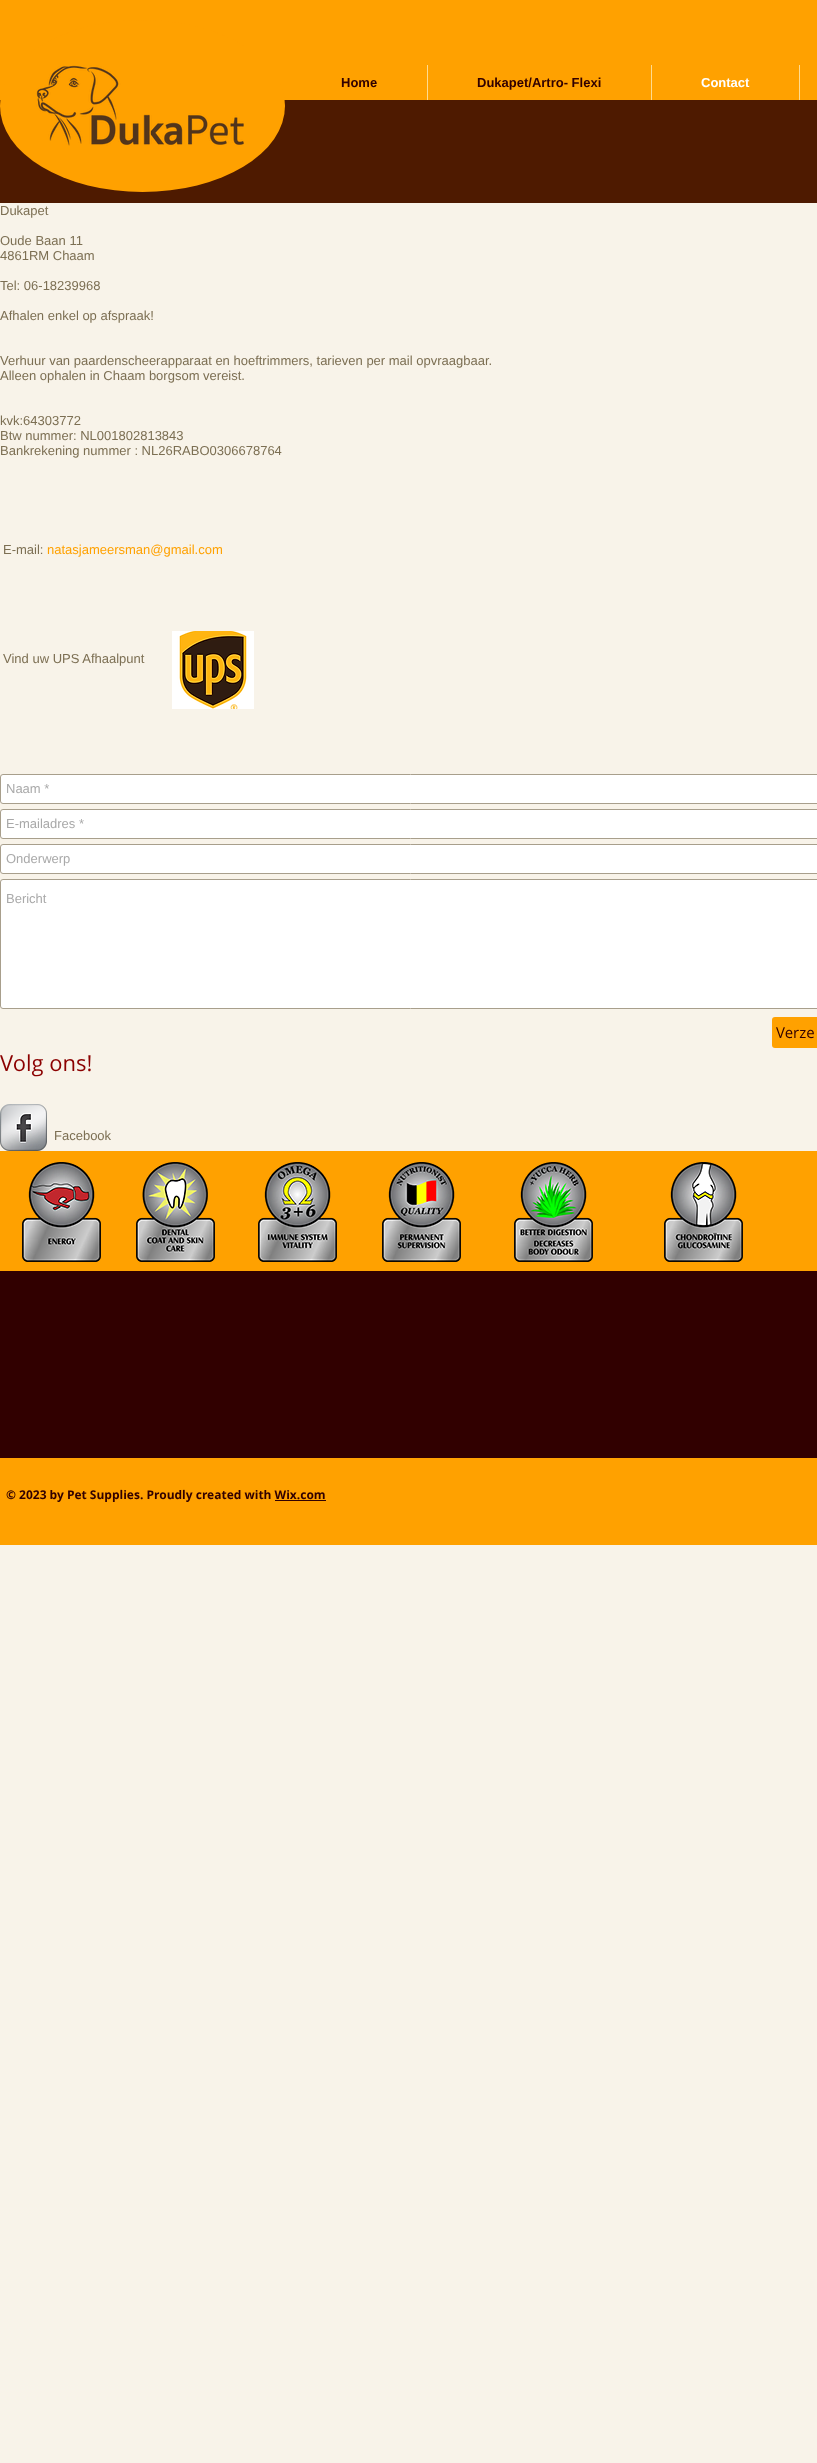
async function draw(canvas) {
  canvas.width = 817;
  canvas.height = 2463;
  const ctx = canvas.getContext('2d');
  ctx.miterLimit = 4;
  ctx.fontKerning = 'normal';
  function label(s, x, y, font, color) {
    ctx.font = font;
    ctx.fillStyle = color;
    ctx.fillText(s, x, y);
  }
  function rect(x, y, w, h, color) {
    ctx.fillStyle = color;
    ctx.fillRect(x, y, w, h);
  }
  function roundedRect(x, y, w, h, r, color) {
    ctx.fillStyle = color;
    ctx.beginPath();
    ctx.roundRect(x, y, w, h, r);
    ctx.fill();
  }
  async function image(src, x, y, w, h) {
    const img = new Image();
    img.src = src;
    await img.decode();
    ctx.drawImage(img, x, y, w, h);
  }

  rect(0, 0, 817, 2463, '#f8f3e9');
  rect(0, 0, 817, 100, '#ffa100');
  rect(0, 100, 817, 103, '#4e1a00');
  ctx.fillStyle = '#ffa100';
  ctx.beginPath();
  ctx.ellipse(142.5, 106, 142.5, 86, 0, 0, 2 * Math.PI);
  ctx.fill();
  await image('assets/img1.png', 36, 65, 208, 81);
  label('Home', 341, 87, 'bold 13px Liberation Sans', '#310000');
  rect(427, 65, 1, 35, '#ffdb90');
  label('Dukapet/Artro- Flexi', 477, 87, 'bold 13px Liberation Sans', '#310000');
  rect(651, 65, 1, 35, '#ffdb90');
  label('Contact', 701, 87, 'bold 13px Liberation Sans', '#fff');
  rect(799, 65, 1, 35, '#ffdb90');
  label('Dukapet', 0, 215, '13px Liberation Sans', '#7c6f53');
  label('Oude Baan 11', 0, 245, '13px Liberation Sans', '#7c6f53');
  label('4861RM Chaam', 0, 260, '13px Liberation Sans', '#7c6f53');
  label('Tel: 06-18239968', 0, 290, '13px Liberation Sans', '#7c6f53');
  label('Afhalen enkel op afspraak!', 0, 320, '13px Liberation Sans', '#7c6f53');
  label('Verhuur van paardenscheerapparaat en hoeftrimmers, tarieven per mail opvraagbaar.', 0, 365, '13px Liberation Sans', '#7c6f53');
  label('Alleen ophalen in Chaam borgsom vereist.', 0, 380, '13px Liberation Sans', '#7c6f53');
  label('kvk:64303772', 0, 425, '13px Liberation Sans', '#7c6f53');
  label('Btw nummer: NL001802813843', 0, 440, '13px Liberation Sans', '#7c6f53');
  label('Bankrekening nummer : NL26RABO0306678764', 0, 455, '13px Liberation Sans', '#7c6f53');
  label('E-mail:', 3, 554, '13px Liberation Sans', '#7c6f53');
  label('natasjameersman@gmail.com', 47, 554, '13px Liberation Sans', '#ffa100');
  label('Vind uw UPS Afhaalpunt', 3, 663, '13px Liberation Sans', '#7c6f53');
  await image('assets/img2.png', 172, 631, 82, 78);
  ctx.fillStyle = '#fff';
  ctx.beginPath();
  ctx.roundRect(0.5, 774.5, 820, 29, 2.5);
  ctx.fill();
  ctx.strokeStyle = '#a89f8c';
  ctx.stroke();
  label('Naam *', 6, 793, '13px Liberation Sans', '#a9a9a9');
  ctx.fillStyle = '#fff';
  ctx.beginPath();
  ctx.roundRect(0.5, 809.5, 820, 29, 2.5);
  ctx.fill();
  ctx.stroke();
  label('E-mailadres *', 6, 828, '13px Liberation Sans', '#a9a9a9');
  ctx.fillStyle = '#fff';
  ctx.beginPath();
  ctx.roundRect(0.5, 844.5, 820, 29, 2.5);
  ctx.fill();
  ctx.stroke();
  label('Onderwerp', 6, 863, '13px Liberation Sans', '#a9a9a9');
  ctx.fillStyle = '#fff';
  ctx.beginPath();
  ctx.roundRect(0.5, 879.5, 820, 129, 2.5);
  ctx.fill();
  ctx.stroke();
  label('Bericht', 6, 903, '13px Liberation Sans', '#a9a9a9');
  roundedRect(772, 1017, 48, 31, 3, '#ffa100');
  label('Verze', 776, 1038, '15px Open Sans', '#310000');
  label('Volg ons!', 0, 1071, '22px Open Sans', '#8b0000');
  await image('assets/img3.png', 0, 1104, 47, 47);
  label('Facebook', 54, 1140, '13px Liberation Sans', '#7c6f53');
  rect(0, 1151, 817, 394, '#ffa100');
  await image('assets/img4.png', 22, 1162, 79, 100);
  await image('assets/img5.png', 136, 1162, 79, 100);
  await image('assets/img6.png', 258, 1162, 79, 100);
  await image('assets/img7.png', 382, 1162, 79, 100);
  await image('assets/img8.png', 514, 1162, 79, 100);
  await image('assets/img9.png', 664, 1162, 79, 100);
  rect(0, 1271, 817, 187, '#310000');
  label('© 2023 by Pet Supplies. Proudly created with Wix.com', 6, 1499, 'bold 12px Open Sans', '#310000');
  rect(275, 1500, 51, 1, '#310000');
}

draw(document.querySelector('canvas'));
